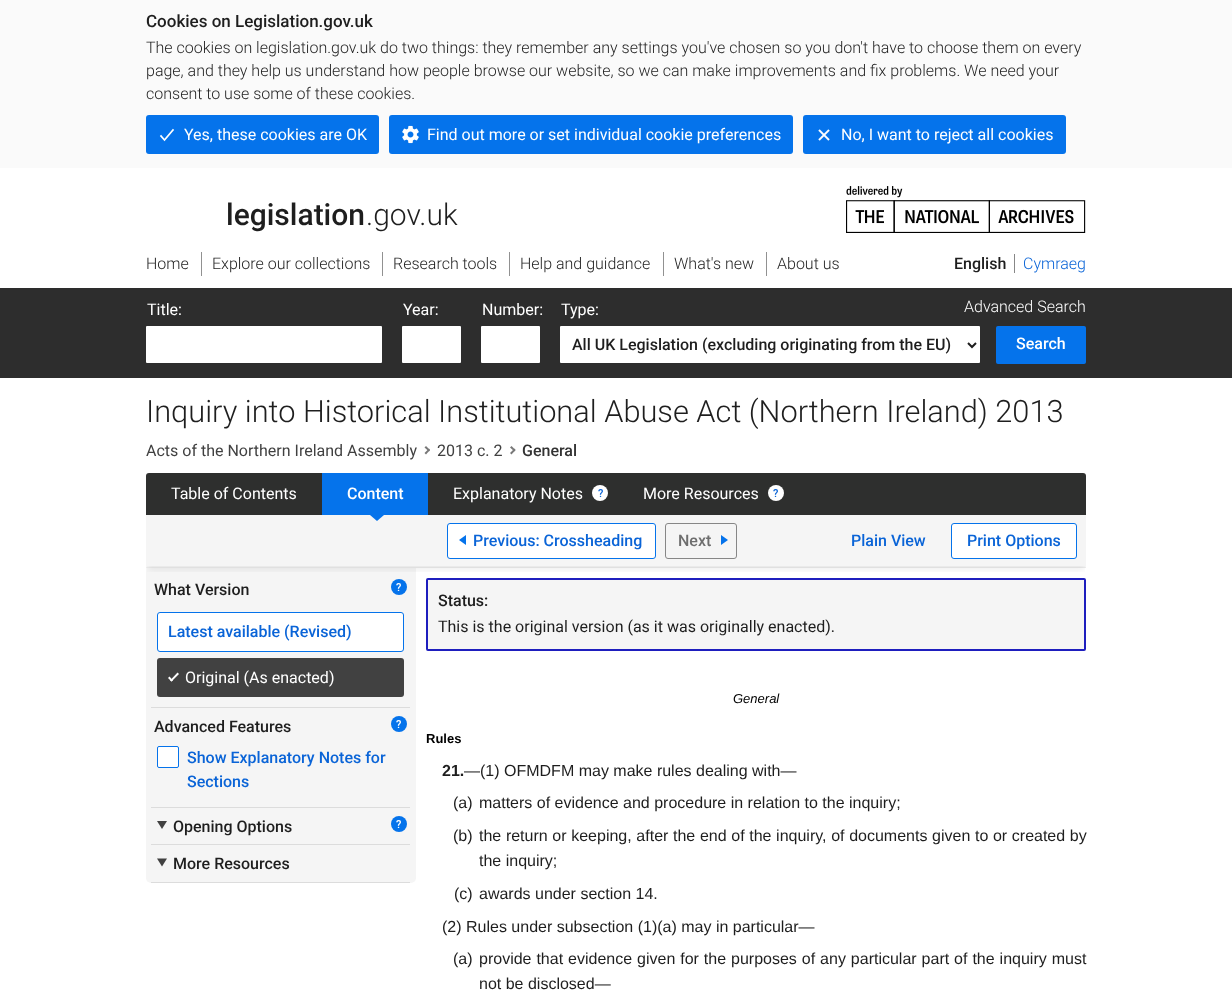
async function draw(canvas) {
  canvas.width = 1232;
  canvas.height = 1002;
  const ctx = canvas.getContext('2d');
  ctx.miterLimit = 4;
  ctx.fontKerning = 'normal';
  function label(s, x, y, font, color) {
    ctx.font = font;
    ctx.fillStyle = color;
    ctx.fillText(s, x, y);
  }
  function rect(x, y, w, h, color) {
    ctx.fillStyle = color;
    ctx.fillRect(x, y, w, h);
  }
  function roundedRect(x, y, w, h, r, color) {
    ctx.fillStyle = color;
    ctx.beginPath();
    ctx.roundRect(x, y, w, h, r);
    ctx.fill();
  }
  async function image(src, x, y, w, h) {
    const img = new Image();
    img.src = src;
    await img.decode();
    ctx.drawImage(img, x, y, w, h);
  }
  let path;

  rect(0, 0, 1232, 1002, '#fff');
  rect(0, 0, 1232, 168, '#fafafa');
  label('Cookies on Legislation.gov.uk', 146, 27, '500 17px Roboto', '#1e1e1e');
  label('The cookies on legislation.gov.uk do two things: they remember any settings you\'ve chosen so you don\'t have to choose them on every', 146, 53, '300 16px Roboto', '#1e1e1e');
  label('page, and they help us understand how people browse our website, so we can make improvements and fix problems. We need your', 146, 76, '300 16px Roboto', '#1e1e1e');
  label('consent to use some of these cookies.', 146, 99, '300 16px Roboto', '#1e1e1e');
  roundedRect(146, 115, 233, 39, 3, '#0573eb');
  path = new Path2D('M173 130L164.5 140L161 136');
  ctx.strokeStyle = '#fff';
  ctx.lineWidth = 1.7;
  ctx.lineCap = 'square';
  ctx.stroke(path);
  label('Yes, these cookies are OK', 184, 140, '16px Roboto', '#fff');
  roundedRect(389, 115, 404, 39, 3, '#0573eb');
  await image('assets/img1.png', 402, 125, 17, 19);
  label('Find out more or set individual cookie preferences', 427, 140, '16px Roboto', '#fff');
  roundedRect(803, 115, 263, 39, 3, '#0573eb');
  await image('assets/img2.png', 818, 129, 12, 12);
  label('No, I want to reject all cookies', 841, 140, '16px Roboto', '#fff');
  label('legislation', 226, 225, '500 30px Roboto', '#1e1e1e');
  label('.gov.uk', 366, 225, '300 30px Roboto', '#1e1e1e');
  await image('assets/img3.png', 846, 186, 240, 47);
  label('English', 954, 269, '500 16px Roboto', '#1e1e1e');
  rect(1014, 254, 1, 19, '#878787');
  label('Cymraeg', 1023, 269, '300 16px Roboto', '#0a64d7');
  rect(0, 288, 1232, 90, '#2d2d2d');
  label('Home', 146, 269, '300 16px Roboto', '#1e1e1e');
  rect(201, 252, 1, 24, '#919191');
  label('Explore our collections', 212, 269, '300 16px Roboto', '#1e1e1e');
  rect(382, 252, 1, 24, '#919191');
  label('Research tools', 393, 269, '300 16px Roboto', '#1e1e1e');
  rect(509, 252, 1, 24, '#919191');
  label('Help and guidance', 520, 269, '300 16px Roboto', '#1e1e1e');
  rect(663, 252, 1, 24, '#919191');
  label('What\'s new', 674, 269, '300 16px Roboto', '#1e1e1e');
  rect(766, 252, 1, 24, '#919191');
  label('About us', 777, 269, '300 16px Roboto', '#1e1e1e');
  label('Title:', 147, 315, '16px Roboto', '#fff');
  roundedRect(146, 326, 236, 37, 1, '#fff');
  label('Year:', 403, 315, '16px Roboto', '#fff');
  roundedRect(402, 326, 59, 37, 1, '#fff');
  label('Number:', 482, 315, '16px Roboto', '#fff');
  roundedRect(481, 326, 59, 37, 1, '#fff');
  label('Type:', 561, 315, '16px Roboto', '#fff');
  roundedRect(560, 326, 420, 37, 1, '#fff');
  path = new Path2D('M968 343L972 347L976 343');
  ctx.strokeStyle = '#1e1e1e';
  ctx.lineWidth = 2;
  ctx.lineCap = 'butt';
  ctx.stroke(path);
  label('All UK Legislation (excluding originating from the EU)', 572, 350, '500 16px Roboto', '#1e1e1e');
  label('Advanced Search', 964, 312, '300 16px Roboto', '#fff');
  roundedRect(996, 326, 90, 38, 2, '#0573eb');
  label('Search', 1016, 349, '500 16px Roboto', '#fff');
  label('Inquiry into Historical Institutional Abuse Act (Northern Ireland) 2013', 146, 422, '300 30.75px Roboto', '#1e1e1e');
  label('Acts of the Northern Ireland Assembly', 146, 456, '16px Roboto', '#414141');
  ctx.fillStyle = '#787878';
  path = new Path2D('M426 446L430 450L429 451.5L424.5 447.5Z');
  ctx.fill(path);
  path = new Path2D('M429 448.5L430 450L426 454.5L424.5 453Z');
  ctx.fill(path);
  label('2013 c. 2', 437, 456, '16px Roboto', '#414141');
  ctx.fillStyle = '#787878';
  path = new Path2D('M511.5 446L515.5 450L514.5 451.5L510 447.5Z');
  ctx.fill(path);
  path = new Path2D('M514.5 448.5L515.5 450L511.5 454.5L510 453Z');
  ctx.fill(path);
  label('General', 522, 456, '500 16px Roboto', '#333');
  ctx.fillStyle = '#2e2f2e';
  ctx.beginPath();
  ctx.roundRect(146, 473, 940, 42, [3, 3, 0, 0]);
  ctx.fill();
  label('Table of Contents', 171, 499, '16px Roboto', '#fff');
  rect(322, 473, 106, 42, '#0573eb');
  label('Content', 347, 499, '500 16px Roboto', '#fff');
  rect(146, 515, 940, 52, '#f5f5f5');
  ctx.fillStyle = '#0573eb';
  path = new Path2D('M370 515H384L377 521Z');
  ctx.fill(path);
  label('Explanatory Notes', 453, 499, '16px Roboto', '#fff');
  ctx.beginPath();
  ctx.arc(600, 493, 8, 0, 2 * Math.PI);
  ctx.fill();
  label('?', 598, 497, '500 11px Roboto', '#0a64d7');
  label('More Resources', 643, 499, '16px Roboto', '#fff');
  ctx.beginPath();
  ctx.arc(776, 493, 8, 0, 2 * Math.PI);
  ctx.fill();
  label('?', 773, 497, '500 11px Roboto', '#0a64d7');
  rect(146, 567, 940, 1, '#ebebeb');
  ctx.fillStyle = '#fff';
  ctx.beginPath();
  ctx.roundRect(447.5, 523.5, 208, 35, 2.5);
  ctx.fill();
  ctx.strokeStyle = '#0573eb';
  ctx.lineWidth = 1;
  ctx.stroke();
  ctx.fillStyle = '#0573eb';
  path = new Path2D('M466 535V545L459 540Z');
  ctx.fill(path);
  label('Previous: Crossheading', 473, 546, '500 16px Roboto', '#0a64d7');
  ctx.beginPath();
  ctx.roundRect(665.5, 523.5, 71, 35, 2.5);
  ctx.strokeStyle = '#878787';
  ctx.stroke();
  label('Next', 678, 546, '500 16px Roboto', '#6e6e6e');
  ctx.fillStyle = '#0573eb';
  path = new Path2D('M721 545V535L728 540Z');
  ctx.fill(path);
  label('Plain View', 851, 546, '500 16px Roboto', '#0a64d7');
  ctx.fillStyle = '#fff';
  ctx.beginPath();
  ctx.roundRect(951.5, 523.5, 125, 35, 2.5);
  ctx.fill();
  ctx.strokeStyle = '#0573eb';
  ctx.stroke();
  label('Print Options', 967, 546, '500 16px Roboto', '#0a64d7');
  ctx.fillStyle = '#f5f5f5';
  ctx.beginPath();
  ctx.roundRect(146, 568, 270, 315, [0, 0, 5, 5]);
  ctx.fill();
  rect(151, 707, 259, 1, '#dcdcdc');
  label('What Version', 154, 595, '500 16px Roboto', '#1e1e1e');
  ctx.fillStyle = '#0573eb';
  ctx.beginPath();
  ctx.arc(399, 587, 8, 0, 2 * Math.PI);
  ctx.fill();
  label('?', 396, 591, '500 11px Roboto', '#fff');
  ctx.beginPath();
  ctx.roundRect(157.5, 612.5, 246, 39, 2.5);
  ctx.fill();
  ctx.stroke();
  label('Latest available (Revised)', 168, 637, '500 16px Roboto', '#0a64d7');
  roundedRect(157, 658, 247, 39, 3, '#414141');
  ctx.fillStyle = '#fff';
  path = new Path2D('M177.5 672.5L179 674L171.5 681.5L170 680.5Z');
  ctx.fill(path);
  path = new Path2D('M169.5 676.5L173 680.5L171.5 681.5L168 678Z');
  ctx.fill(path);
  label('Original (As enacted)', 185, 683, '16px Roboto', '#fff');
  rect(151, 807, 259, 1, '#dcdcdc');
  label('Advanced Features', 154, 732, '500 16px Roboto', '#1e1e1e');
  ctx.fillStyle = '#0573eb';
  ctx.beginPath();
  ctx.arc(399, 724, 8, 0, 2 * Math.PI);
  ctx.fill();
  label('?', 396, 728, '500 11px Roboto', '#fff');
  ctx.beginPath();
  ctx.roundRect(157.5, 746.5, 21, 21, 1.5);
  ctx.fill();
  ctx.stroke();
  label('Show Explanatory Notes for', 187, 763, '500 16px Roboto', '#0a64d7');
  label('Sections', 187, 787, '500 16px Roboto', '#0a64d7');
  rect(151, 844, 259, 1, '#dcdcdc');
  ctx.fillStyle = '#414141';
  path = new Path2D('M157 821H167L162 829ZM157 858.5H167L162 866.5Z');
  ctx.fill(path);
  label('Opening Options', 173, 832, '500 16px Roboto', '#1e1e1e');
  ctx.fillStyle = '#0573eb';
  ctx.beginPath();
  ctx.arc(399, 824, 8, 0, 2 * Math.PI);
  ctx.fill();
  label('?', 396, 828, '500 11px Roboto', '#fff');
  rect(151, 882, 259, 1, '#dcdcdc');
  label('More Resources', 173, 869, '500 16px Roboto', '#1e1e1e');
  ctx.fillStyle = '#f5f5f5';
  ctx.beginPath();
  ctx.roundRect(427, 579, 658, 71, 1);
  ctx.fill();
  ctx.strokeStyle = '#1e1ebe';
  ctx.lineWidth = 2;
  ctx.stroke();
  ctx.save();
  ctx.beginPath();
  ctx.rect(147, 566, 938, 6);
  ctx.clip();
  ctx.fillStyle = '#01010112';
  ctx.filter = 'blur(3px)';
  ctx.beginPath();
  ctx.rect(148, 564, 936, 6);
  ctx.fill();
  ctx.filter = 'none';
  ctx.restore();
  label('Status:', 438, 606, '500 16px Roboto', '#1e1e1e');
  label('This is the original version (as it was originally enacted).', 438, 632, '16px Roboto', '#1e1e1e');
  label('General', 733, 703, 'italic 13px Liberation Sans', '#000');
  label('Rules', 426, 743, 'bold 13px Liberation Sans', '#000');
  label('21.', 442, 776, 'bold 16px Liberation Sans', '#1e1e1e');
  label('—(1) OFMDFM may make rules dealing with—', 464, 776, '16px Liberation Sans', '#1e1e1e');
  label('(a)', 453, 808, '16px Liberation Sans', '#1e1e1e');
  label('matters of evidence and procedure in relation to the inquiry;', 479, 808, '16px Liberation Sans', '#1e1e1e');
  label('(b)', 453, 841, '16px Liberation Sans', '#1e1e1e');
  ctx.wordSpacing = '0.2px';
  label('the return or keeping, after the end of the inquiry, of documents given to or created by', 479, 841, '16px Liberation Sans', '#1e1e1e');
  ctx.wordSpacing = '0px';
  label('the inquiry;', 479, 866, '16px Liberation Sans', '#1e1e1e');
  label('(c)', 454, 899, '16px Liberation Sans', '#1e1e1e');
  label('awards under section 14.', 479, 899, '16px Liberation Sans', '#1e1e1e');
  label('(2) Rules under subsection (1)(a) may in particular—', 442, 932, '16px Liberation Sans', '#1e1e1e');
  label('(a)', 453, 964, '16px Liberation Sans', '#1e1e1e');
  ctx.wordSpacing = '0.5px';
  label('provide that evidence given for the purposes of any particular part of the inquiry must', 479, 964, '16px Liberation Sans', '#1e1e1e');
  ctx.wordSpacing = '0px';
  label('not be disclosed—', 479, 989, '16px Liberation Sans', '#1e1e1e');
}

draw(document.querySelector('canvas'));
